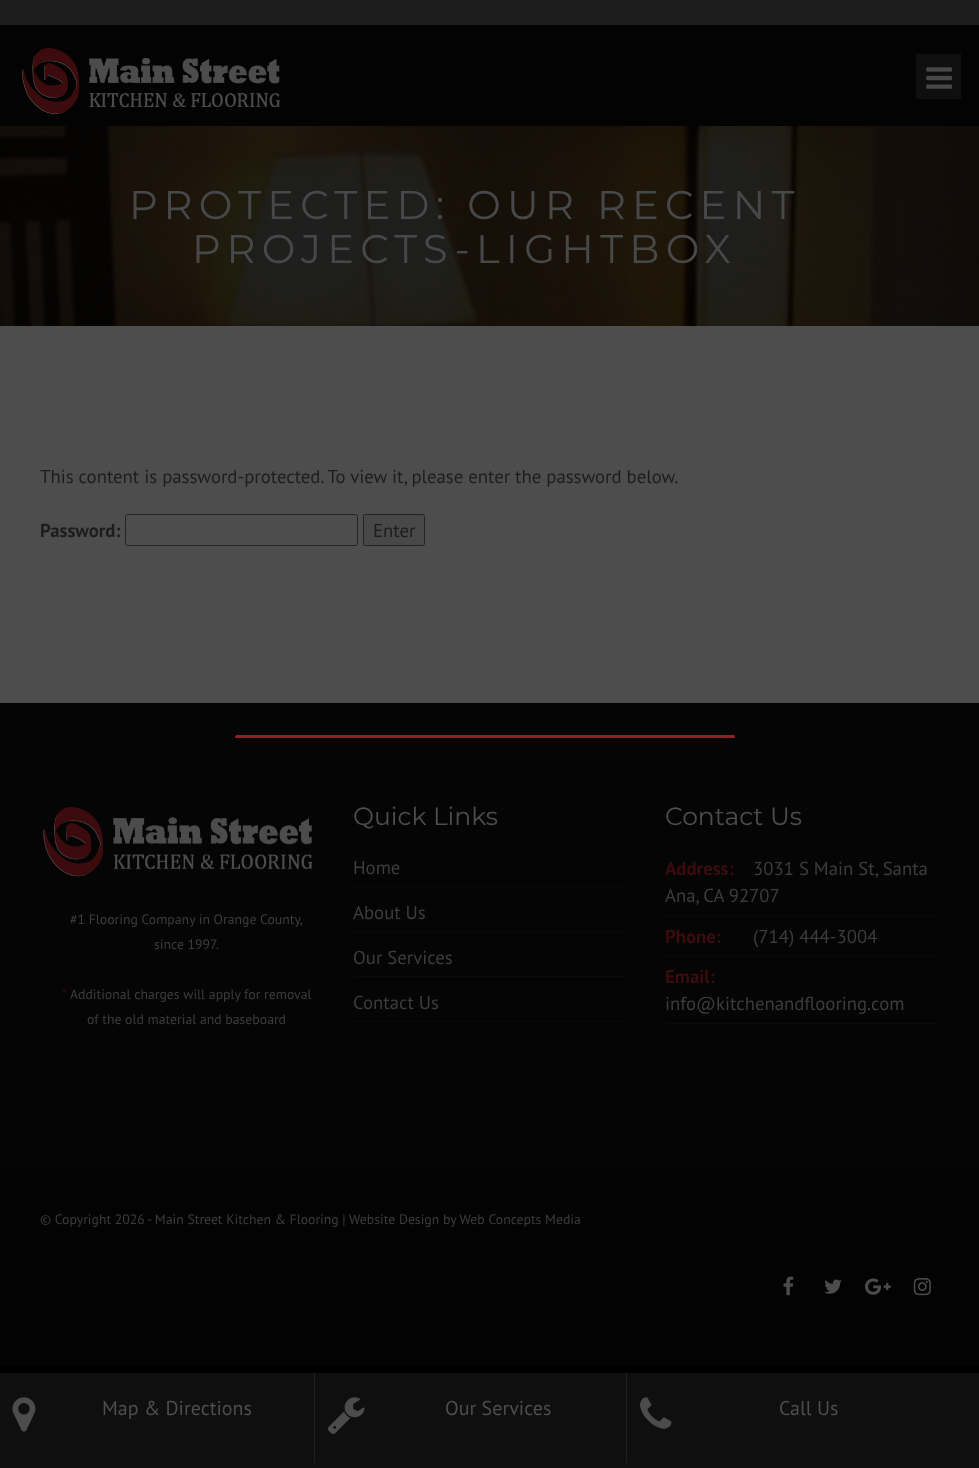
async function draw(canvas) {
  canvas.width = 979;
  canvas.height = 1468;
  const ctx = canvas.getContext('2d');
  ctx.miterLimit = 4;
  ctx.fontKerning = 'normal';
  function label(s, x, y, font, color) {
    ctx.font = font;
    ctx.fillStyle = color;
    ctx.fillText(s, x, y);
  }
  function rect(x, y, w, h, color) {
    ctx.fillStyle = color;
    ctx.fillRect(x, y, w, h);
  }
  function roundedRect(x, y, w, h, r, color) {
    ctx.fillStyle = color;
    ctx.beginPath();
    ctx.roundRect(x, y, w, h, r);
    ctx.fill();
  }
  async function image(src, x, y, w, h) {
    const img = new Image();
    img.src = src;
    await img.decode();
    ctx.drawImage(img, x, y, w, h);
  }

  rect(0, 0, 979, 1468, '#000');
  rect(0, 0, 979, 25, '#1d1d1d');
  rect(0, 25, 979, 101, '#030303');
  await image('assets/img1.png', 21, 47, 260, 68);
  rect(916, 54, 45, 45, '#0f0f0f');
  await image('assets/img2.png', 926, 67, 26, 22);
  await image('assets/img3.png', 0, 126, 979, 200);
  ctx.letterSpacing = '6.25px';
  label('PROTECTED: OUR RECENT', 129, 219, '40px Montserrat', '#474849');
  label('PROJECTS-LIGHTBOX', 192, 263, '40px Montserrat', '#474849');
  rect(0, 326, 979, 377, '#4d4d4d');
  ctx.letterSpacing = '0px';
  label('This content is password-protected. To view it, please enter the password below.', 40, 483, '18.75px PT Sans', '#1d1d1d');
  label('Password:', 40, 537, 'bold 18.75px PT Sans', '#1d1d1d');
  ctx.beginPath();
  ctx.roundRect(125.5, 514.5, 232, 31, 2);
  ctx.strokeStyle = '#232323';
  ctx.stroke();
  ctx.fillStyle = '#484848';
  ctx.beginPath();
  ctx.roundRect(363.5, 514.5, 61, 31, 2);
  ctx.fill();
  ctx.stroke();
  label('Enter', 373, 537, '18.75px PT Sans', '#1d1d1d');
  rect(0, 703, 979, 466, '#050505');
  await image('assets/img4.png', 43, 806, 270, 71);
  label('#1 Flooring Company in Orange County,', 70, 924, '13.75px PT Sans', '#3d3d3d');
  label('since 1997.', 154, 949, '13.75px PT Sans', '#3d3d3d');
  label('*', 62, 999, '13.75px PT Sans', '#4d0000');
  label('Additional charges will apply for removal', 70, 999, '13.75px PT Sans', '#3d3d3d');
  label('of the old material and baseboard', 87, 1024, '13.75px PT Sans', '#3d3d3d');
  label('Quick Links', 353, 825, '25px Montserrat', '#4d4d4d');
  rect(353, 886, 275, 1, '#0a0a0a');
  label('Home', 353, 874, '18.75px PT Sans', '#3d3d3d');
  rect(353, 931, 275, 1, '#0a0a0a');
  label('About Us', 353, 919, '18.75px PT Sans', '#3d3d3d');
  rect(353, 976, 275, 1, '#0a0a0a');
  label('Our Services', 353, 964, '18.75px PT Sans', '#3d3d3d');
  rect(353, 1021, 275, 1, '#0a0a0a');
  label('Contact Us', 353, 1009, '18.75px PT Sans', '#3d3d3d');
  label('Contact Us', 665, 825, '25px Montserrat', '#4d4d4d');
  rect(665, 915, 275, 1, '#0a0a0a');
  label('Address:', 665, 875, 'bold 18.75px PT Sans', '#3c0b0d');
  label('3031 S Main St, Santa', 753, 875, '18.75px PT Sans', '#3d3d3d');
  label('Ana, CA 92707', 665, 902, '18.75px PT Sans', '#3d3d3d');
  rect(665, 956, 275, 1, '#0a0a0a');
  label('Phone:', 665, 943, 'bold 18.75px PT Sans', '#3c0b0d');
  label('(714) 444-3004', 753, 943, '18.75px PT Sans', '#3d3d3d');
  rect(665, 1023, 275, 1, '#0a0a0a');
  label('Email:', 665, 983, 'bold 18.75px PT Sans', '#3c0b0d');
  label('info@kitchenandflooring.com', 665, 1010, '18.75px PT Sans', '#3d3d3d');
  rect(0, 1169, 979, 197, '#030303');
  label('© Copyright 2026 - Main Street Kitchen & Flooring | Website Design by Web Concepts Media', 40, 1224, '13.75px PT Sans', '#3d3d3d');
  await image('assets/img5.png', 783, 1276, 11, 20);
  await image('assets/img6.png', 824, 1279, 18, 15);
  await image('assets/img7.png', 865, 1278, 26, 17);
  await image('assets/img8.png', 913, 1278, 18, 18);
  roundedRect(235, 735, 500, 3, 1.5, '#932023');
  rect(0, 1373, 979, 95, '#0f0f0f');
  await image('assets/img9.png', 12, 1397, 24, 35);
  label('Map & Directions', 102, 1415, '20px PT Sans', '#4d4d4d');
  rect(626, 1373, 1, 90, '#1f1f1f');
  rect(314, 1373, 1, 90, '#1f1f1f');
  await image('assets/img10.png', 328, 1397, 37, 37);
  label('Our Services', 445, 1415, '20px PT Sans', '#4d4d4d');
  await image('assets/img11.png', 640, 1397, 32, 32);
  label('Call Us', 779, 1415, '20px PT Sans', '#4d4d4d');
}

draw(document.querySelector('canvas'));
